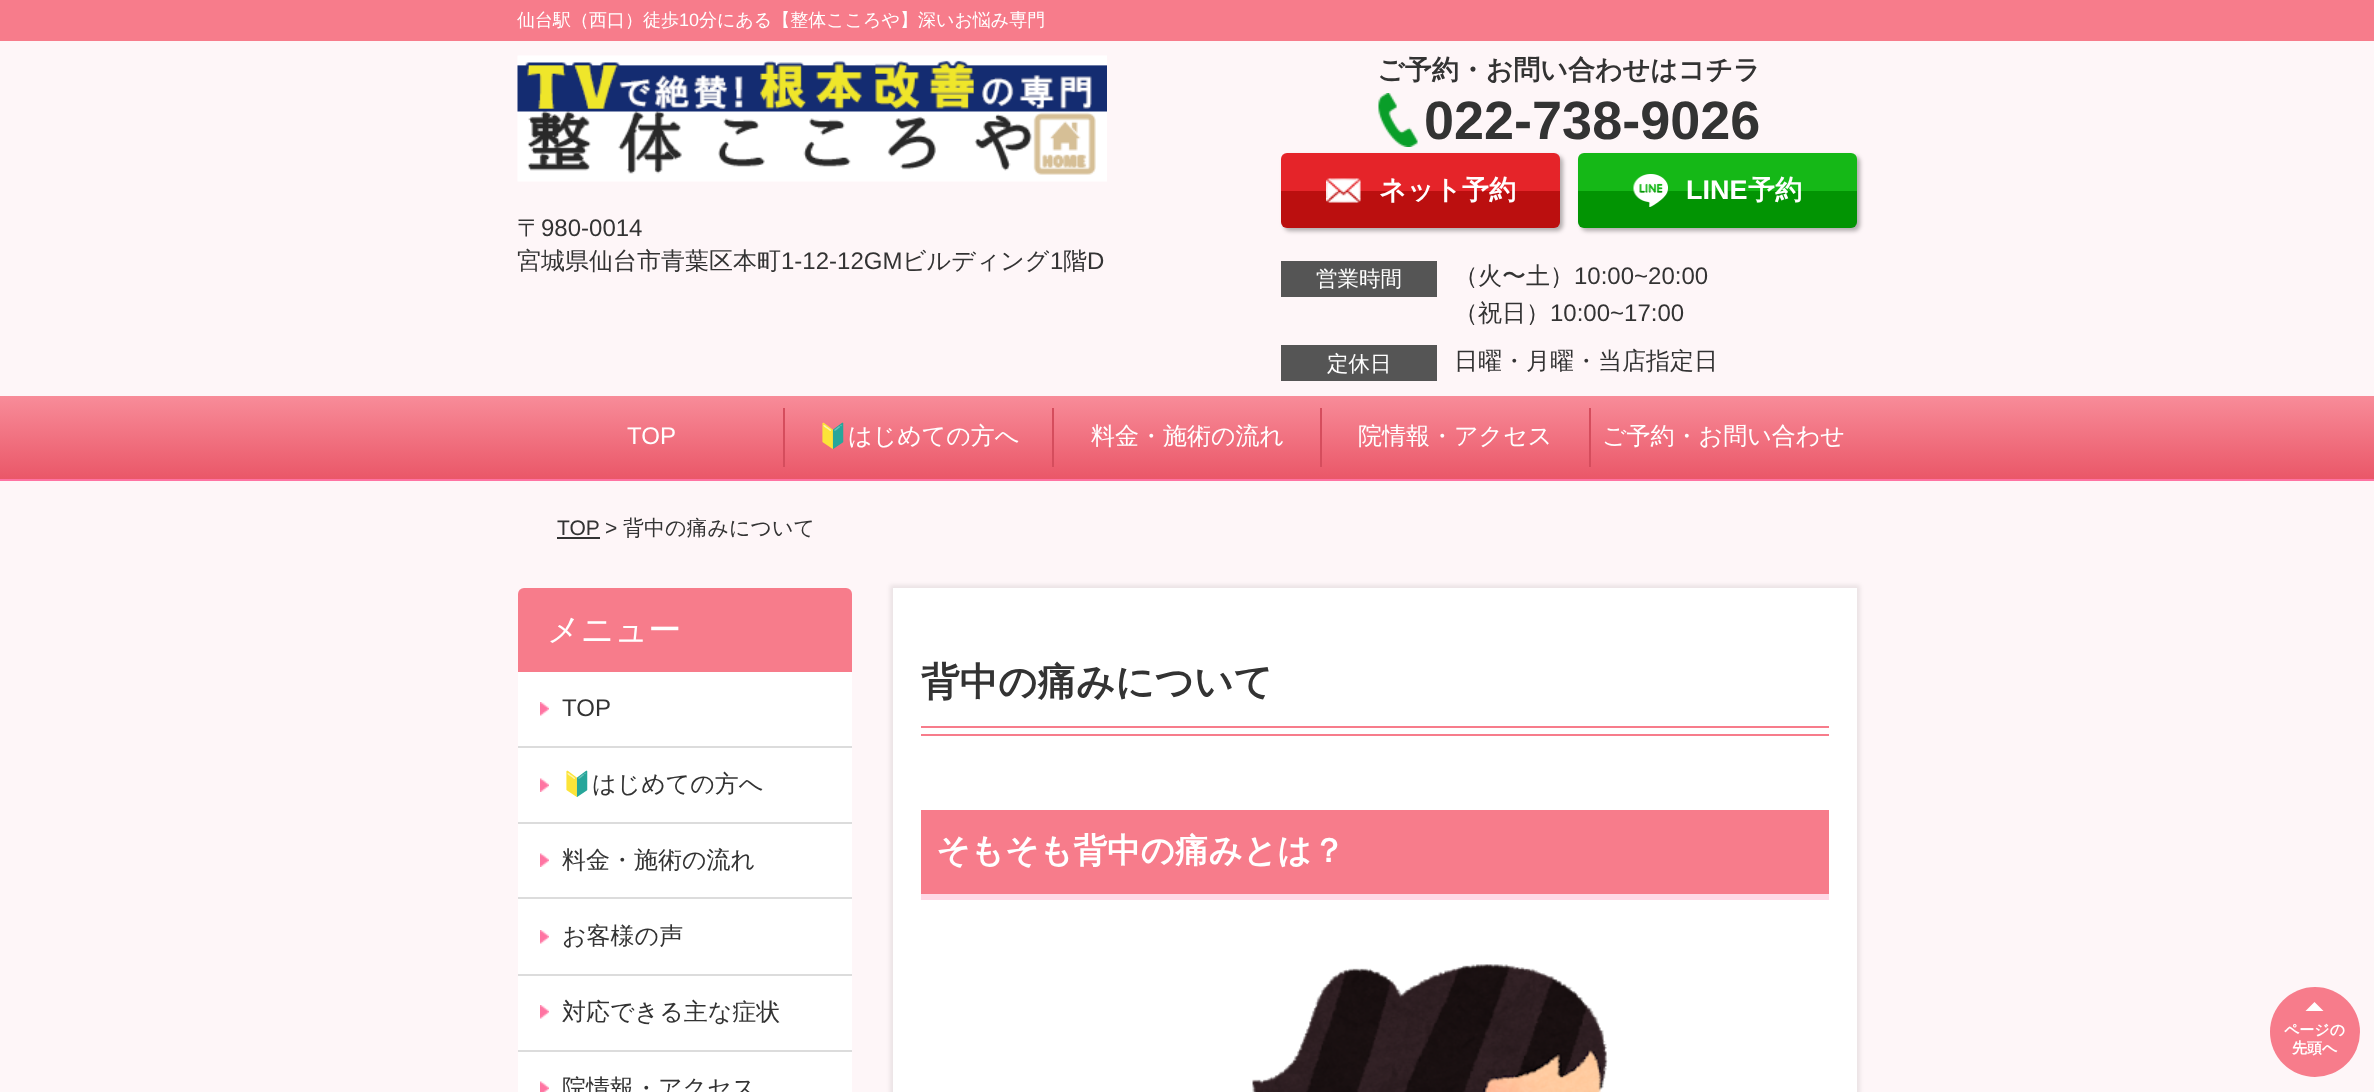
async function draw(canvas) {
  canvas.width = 2374;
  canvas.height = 1092;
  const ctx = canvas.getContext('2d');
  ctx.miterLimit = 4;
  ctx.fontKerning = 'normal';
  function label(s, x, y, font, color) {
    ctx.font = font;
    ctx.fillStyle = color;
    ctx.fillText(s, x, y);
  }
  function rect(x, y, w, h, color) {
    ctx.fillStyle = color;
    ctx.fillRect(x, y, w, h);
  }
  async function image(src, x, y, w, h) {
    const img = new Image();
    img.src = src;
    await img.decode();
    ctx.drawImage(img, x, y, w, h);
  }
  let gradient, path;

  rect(0, 0, 2374, 1092, '#fef6f8');
  rect(0, 0, 2374, 41, '#f77c8b');
  label('仙台駅（西口）徒歩', 517, 26, '500 18px WenQuanYi Zen Hei', '#fff');
  label('10', 679, 26, '18px Liberation Sans', '#fff');
  label('分にある【整体こころや】深いお悩み専門', 699, 26, '500 18px WenQuanYi Zen Hei', '#fff');
  await image('assets/img1.png', 517, 55, 590, 127);
  label('〒', 517, 236, '500 24px WenQuanYi Zen Hei', '#333');
  label('980-0014', 541, 236, '24px Liberation Sans', '#333');
  label('宮城県仙台市青葉区本町', 517, 269, '500 24px WenQuanYi Zen Hei', '#333');
  label('1-12-12GM', 781, 269, '24px Liberation Sans', '#333');
  label('ビルディング', 902, 269, '500 24px WenQuanYi Zen Hei', '#333');
  label('1', 1050, 269, '24px Liberation Sans', '#333');
  label('階', 1063, 269, '500 24px WenQuanYi Zen Hei', '#333');
  label('D', 1087, 269, '24px Liberation Sans', '#333');
  label('ご予約・お問い合わせはコチラ', 1377, 79, 'bold 27px WenQuanYi Zen Hei', '#333');
  await image('assets/img2.png', 1378, 93, 40, 54);
  label('022-738-9026', 1424, 139, 'bold 54px Liberation Sans', '#333');
  ctx.fillStyle = '#0000004d';
  ctx.filter = 'blur(2px)';
  ctx.beginPath();
  ctx.roundRect(1284, 156, 279, 75, 6);
  ctx.fill();
  ctx.filter = 'none';
  ctx.fillStyle = '#e52429';
  ctx.beginPath();
  ctx.roundRect(1281, 153, 279, 38, [6, 6, 0, 0]);
  ctx.fill();
  ctx.fillStyle = '#bb0f0f';
  ctx.beginPath();
  ctx.roundRect(1281, 191, 279, 37, [0, 0, 6, 6]);
  ctx.fill();
  await image('assets/img3.png', 1326, 178, 35, 25);
  label('ネット予約', 1379, 199, 'bold 27px WenQuanYi Zen Hei', '#fff');
  ctx.fillStyle = '#0000004d';
  ctx.filter = 'blur(2px)';
  ctx.beginPath();
  ctx.roundRect(1581, 156, 279, 75, 6);
  ctx.fill();
  ctx.filter = 'none';
  ctx.fillStyle = '#15b817';
  ctx.beginPath();
  ctx.roundRect(1578, 153, 279, 38, [6, 6, 0, 0]);
  ctx.fill();
  ctx.fillStyle = '#029403';
  ctx.beginPath();
  ctx.roundRect(1578, 191, 279, 37, [0, 0, 6, 6]);
  ctx.fill();
  await image('assets/img4.png', 1633, 174, 35, 33);
  label('LINE', 1686, 199, 'bold 27px Liberation Sans', '#fff');
  label('予約', 1748, 199, 'bold 27px WenQuanYi Zen Hei', '#fff');
  rect(1281, 261, 156, 36, '#555');
  label('営業時間', 1316, 286, '500 21.5px WenQuanYi Zen Hei', '#fff');
  label('（火〜土）', 1454, 284, '500 24px WenQuanYi Zen Hei', '#333');
  label('10:00~20:00', 1574, 284, '24px Liberation Sans', '#333');
  label('（祝日）', 1454, 321, '500 24px WenQuanYi Zen Hei', '#333');
  label('10:00~17:00', 1550, 321, '24px Liberation Sans', '#333');
  rect(1281, 345, 156, 36, '#555');
  label('定休日', 1327, 371, '500 21.5px WenQuanYi Zen Hei', '#fff');
  label('日曜・月曜・当店指定日', 1454, 369, '500 24px WenQuanYi Zen Hei', '#333');
  gradient = ctx.createLinearGradient(1187, 396, 1187, 479);
  gradient.addColorStop(0, '#f88c99');
  gradient.addColorStop(1, '#ea5768');
  ctx.fillStyle = gradient;
  ctx.fillRect(0, 396, 2374, 83);
  rect(0, 479, 2374, 2, '#ff73a2');
  label('TOP', 627, 444, '24px Liberation Sans', '#fff');
  rect(783, 408, 2, 59, '#d54d5d');
  label('🔰', 818, 444, '24px Noto Color Emoji', '#fff');
  label('はじめての方へ', 848, 444, '500 24px WenQuanYi Zen Hei', '#fff');
  rect(1052, 408, 2, 59, '#d54d5d');
  label('料金・施術の流れ', 1091, 444, '500 24px WenQuanYi Zen Hei', '#fff');
  rect(1320, 408, 2, 59, '#d54d5d');
  label('院情報・アクセス', 1358, 444, '500 24px WenQuanYi Zen Hei', '#fff');
  rect(1589, 408, 2, 59, '#d54d5d');
  label('ご予約・お問い合わせ', 1602, 444, '500 24px WenQuanYi Zen Hei', '#fff');
  label('TOP', 557, 535, '21px Liberation Sans', '#333');
  rect(557, 537, 43, 2, '#333');
  label('>', 605, 535, '21px Liberation Sans', '#333');
  label('背中の痛みについて', 623, 535, '500 21px WenQuanYi Zen Hei', '#333');
  ctx.fillStyle = '#f77c8b';
  ctx.beginPath();
  ctx.roundRect(518, 588, 334, 84, [6, 6, 0, 0]);
  ctx.fill();
  label('メニュー', 547, 641, '500 33px WenQuanYi Zen Hei', '#fff');
  rect(518, 672, 334, 420, '#fff');
  await image('assets/img5.png', 540, 702, 9, 14);
  label('TOP', 562, 716, '24px Liberation Sans', '#333');
  rect(518, 746, 334, 2, '#dcdcdc');
  await image('assets/img6.png', 540, 778, 9, 14);
  label('🔰', 562, 792, '24px Noto Color Emoji', '#333');
  label('はじめての方へ', 592, 792, '500 24px WenQuanYi Zen Hei', '#333');
  rect(518, 822, 334, 2, '#dcdcdc');
  await image('assets/img6.png', 540, 853, 9, 14);
  label('料金・施術の流れ', 562, 868, '500 24px WenQuanYi Zen Hei', '#333');
  rect(518, 897, 334, 2, '#dcdcdc');
  await image('assets/img5.png', 540, 930, 9, 14);
  label('お客様の声', 562, 944, '500 24px WenQuanYi Zen Hei', '#333');
  rect(518, 974, 334, 2, '#dcdcdc');
  await image('assets/img5.png', 540, 1005, 9, 14);
  label('対応できる主な症状', 562, 1020, '500 24px WenQuanYi Zen Hei', '#333');
  rect(518, 1050, 334, 2, '#dcdcdc');
  await image('assets/img7.png', 540, 1081, 9, 11);
  label('院情報・アクセス', 562, 1096, '500 24px WenQuanYi Zen Hei', '#333');
  ctx.fillStyle = '#00000014';
  ctx.filter = 'blur(2px)';
  ctx.beginPath();
  ctx.rect(890, 585, 970, 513);
  ctx.fill();
  ctx.filter = 'none';
  rect(893, 588, 964, 504, '#fff');
  label('背中の痛みについて', 921, 695, 'bold 38.5px WenQuanYi Zen Hei', '#333');
  rect(921, 726, 908, 2, '#f77c8b');
  rect(921, 734, 908, 2, '#f77c8b');
  rect(921, 810, 908, 84, '#f77c8b');
  rect(921, 894, 908, 6, '#ffd9e6');
  label('そもそも背中の痛みとは？', 936, 862, 'bold 33.6px WenQuanYi Zen Hei', '#fff');
  await image('assets/img8.png', 1252, 964, 356, 128);
  ctx.fillStyle = '#f77c8b';
  ctx.beginPath();
  ctx.arc(2315, 1032, 45, 0, 2 * Math.PI);
  ctx.fill();
  ctx.fillStyle = '#fff';
  path = new Path2D('M2323.5 1011H2305.5L2314.5 1002Z');
  ctx.fill(path);
  label('ページの', 2284, 1035, 'bold 15px WenQuanYi Zen Hei', '#fff');
  label('先頭へ', 2292, 1053, 'bold 15px WenQuanYi Zen Hei', '#fff');
}

draw(document.querySelector('canvas'));
